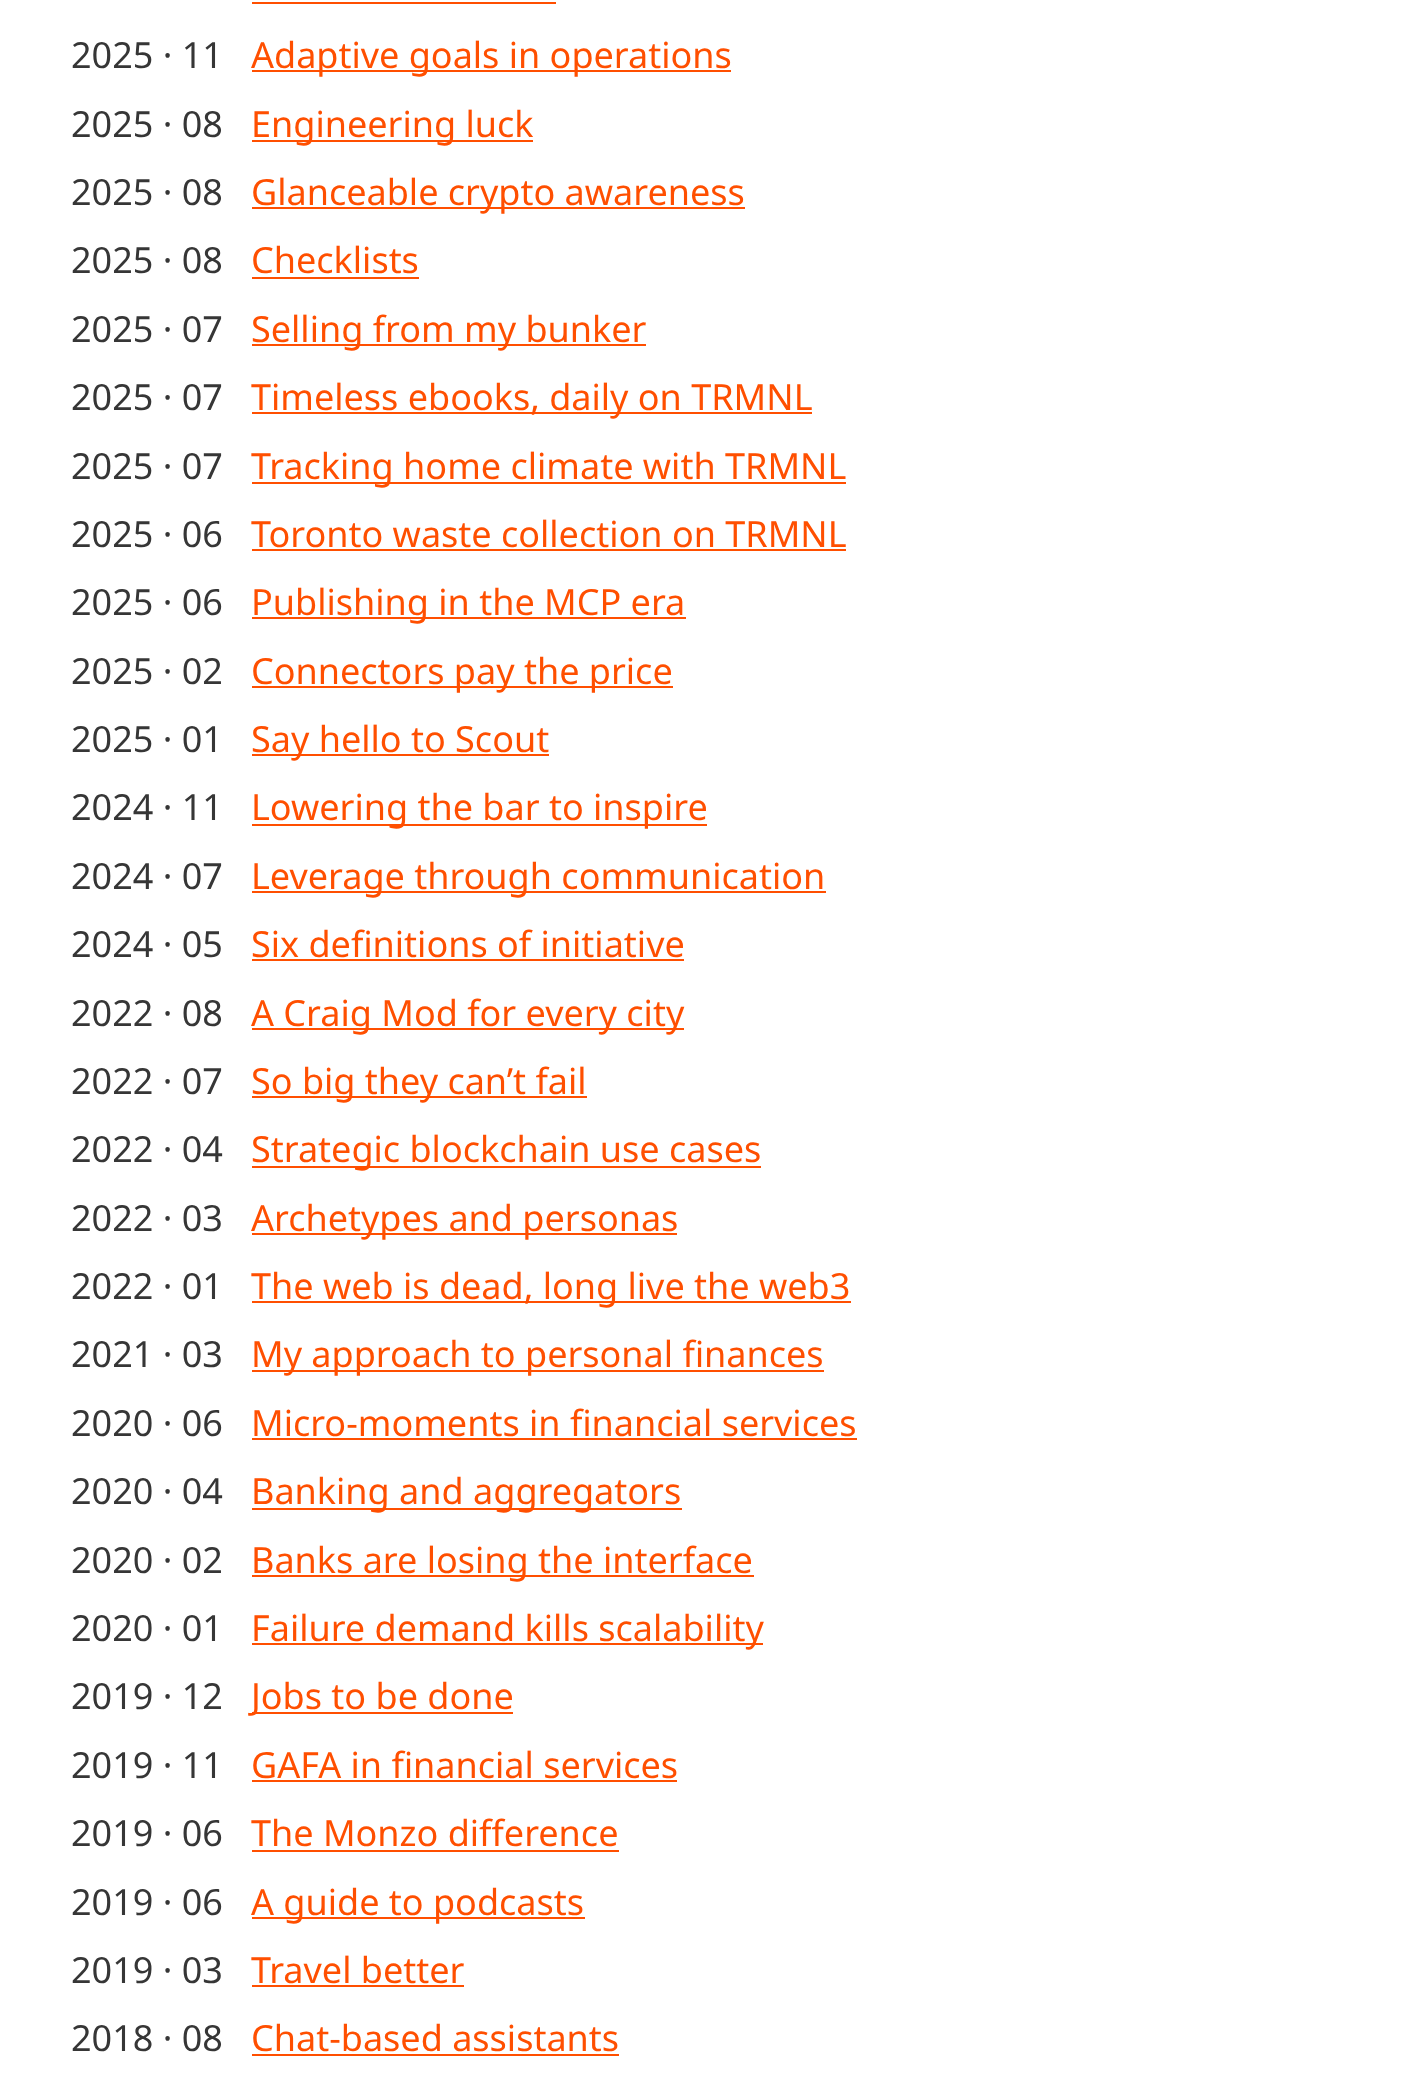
async function draw(canvas) {
  canvas.width = 1417;
  canvas.height = 2087;
  const ctx = canvas.getContext('2d');
  ctx.miterLimit = 4;
  ctx.fontKerning = 'normal';
  function label(s, x, y, font, color) {
    ctx.font = font;
    ctx.fillStyle = color;
    ctx.fillText(s, x, y);
  }
  function rect(x, y, w, h, color) {
    ctx.fillStyle = color;
    ctx.fillRect(x, y, w, h);
  }

  rect(0, 0, 1417, 2087, '#fff');
  rect(252, 2, 304, 2, '#ff4f00');
  label('2025 · 11', 71, 68, '36px Noto Sans', '#363636');
  rect(252, 70, 479, 2, '#ff4f00');
  label('Adaptive goals in operations', 251, 68, '36px Noto Sans', '#ff4f00');
  label('2025 · 08', 71, 137, '36px Noto Sans', '#363636');
  rect(252, 140, 281, 2, '#ff4f00');
  label('Engineering luck', 251, 137, '36px Noto Sans', '#ff4f00');
  label('2025 · 08', 71, 205, '36px Noto Sans', '#363636');
  rect(252, 207, 493, 2, '#ff4f00');
  label('Glanceable crypto awareness', 251, 205, '36px Noto Sans', '#ff4f00');
  label('2025 · 08', 71, 273, '36px Noto Sans', '#363636');
  label('Checklists', 251, 273, '36px Noto Sans', '#ff4f00');
  rect(252, 277, 167, 2, '#ff4f00');
  label('2025 · 07', 71, 342, '36px Noto Sans', '#363636');
  rect(252, 344, 394, 2, '#ff4f00');
  label('Selling from my bunker', 251, 342, '36px Noto Sans', '#ff4f00');
  label('2025 · 07', 71, 410, '36px Noto Sans', '#363636');
  rect(252, 412, 560, 2, '#ff4f00');
  label('Timeless ebooks, daily on TRMNL', 251, 410, '36px Noto Sans', '#ff4f00');
  label('2025 · 07', 71, 479, '36px Noto Sans', '#363636');
  rect(252, 482, 594, 2, '#ff4f00');
  label('Tracking home climate with TRMNL', 251, 479, '36px Noto Sans', '#ff4f00');
  label('2025 · 06', 71, 547, '36px Noto Sans', '#363636');
  label('Toronto waste collection on TRMNL', 251, 547, '36px Noto Sans', '#ff4f00');
  rect(252, 549, 594, 2, '#ff4f00');
  label('2025 · 06', 71, 615, '36px Noto Sans', '#363636');
  rect(252, 617, 434, 2, '#ff4f00');
  label('Publishing in the MCP era', 251, 615, '36px Noto Sans', '#ff4f00');
  label('2025 · 02', 71, 684, '36px Noto Sans', '#363636');
  rect(252, 686, 421, 2, '#ff4f00');
  label('Connectors pay the price', 251, 684, '36px Noto Sans', '#ff4f00');
  label('2025 · 01', 71, 752, '36px Noto Sans', '#363636');
  rect(252, 754, 297, 2, '#ff4f00');
  label('Say hello to Scout', 251, 752, '36px Noto Sans', '#ff4f00');
  label('2024 · 11', 71, 820, '36px Noto Sans', '#363636');
  rect(252, 824, 455, 2, '#ff4f00');
  label('Lowering the bar to inspire', 251, 820, '36px Noto Sans', '#ff4f00');
  label('2024 · 07', 71, 889, '36px Noto Sans', '#363636');
  rect(252, 891, 574, 2, '#ff4f00');
  label('Leverage through communication', 251, 889, '36px Noto Sans', '#ff4f00');
  label('2024 · 05', 71, 957, '36px Noto Sans', '#363636');
  label('Six definitions of initiative', 251, 957, '36px Noto Sans', '#ff4f00');
  rect(252, 959, 432, 2, '#ff4f00');
  label('2022 · 08', 71, 1026, '36px Noto Sans', '#363636');
  rect(252, 1028, 432, 2, '#ff4f00');
  label('A Craig Mod for every city', 251, 1026, '36px Noto Sans', '#ff4f00');
  label('2022 · 07', 71, 1094, '36px Noto Sans', '#363636');
  rect(252, 1096, 335, 2, '#ff4f00');
  label('So big they can’t fail', 251, 1094, '36px Noto Sans', '#ff4f00');
  label('2022 · 04', 71, 1162, '36px Noto Sans', '#363636');
  rect(252, 1166, 509, 2, '#ff4f00');
  label('Strategic blockchain use cases', 251, 1162, '36px Noto Sans', '#ff4f00');
  label('2022 · 03', 71, 1231, '36px Noto Sans', '#363636');
  rect(252, 1233, 425, 2, '#ff4f00');
  label('Archetypes and personas', 251, 1231, '36px Noto Sans', '#ff4f00');
  label('2022 · 01', 71, 1299, '36px Noto Sans', '#363636');
  rect(252, 1301, 599, 2, '#ff4f00');
  label('The web is dead, long live the web3', 251, 1299, '36px Noto Sans', '#ff4f00');
  label('2021 · 03', 71, 1367, '36px Noto Sans', '#363636');
  rect(252, 1370, 572, 2, '#ff4f00');
  label('My approach to personal finances', 251, 1367, '36px Noto Sans', '#ff4f00');
  label('2020 · 06', 71, 1436, '36px Noto Sans', '#363636');
  label('Micro-moments in financial services', 251, 1436, '36px Noto Sans', '#ff4f00');
  rect(252, 1438, 605, 2, '#ff4f00');
  label('2020 · 04', 71, 1504, '36px Noto Sans', '#363636');
  rect(252, 1508, 430, 2, '#ff4f00');
  label('Banking and aggregators', 251, 1504, '36px Noto Sans', '#ff4f00');
  label('2020 · 02', 71, 1573, '36px Noto Sans', '#363636');
  rect(252, 1575, 502, 2, '#ff4f00');
  label('Banks are losing the interface', 251, 1573, '36px Noto Sans', '#ff4f00');
  label('2020 · 01', 71, 1641, '36px Noto Sans', '#363636');
  rect(252, 1643, 511, 2, '#ff4f00');
  label('Failure demand kills scalability', 251, 1641, '36px Noto Sans', '#ff4f00');
  label('2019 · 12', 71, 1709, '36px Noto Sans', '#363636');
  rect(252, 1712, 261, 2, '#ff4f00');
  label('Jobs to be done', 251, 1709, '36px Noto Sans', '#ff4f00');
  label('2019 · 11', 71, 1778, '36px Noto Sans', '#363636');
  label('GAFA in financial services', 251, 1778, '36px Noto Sans', '#ff4f00');
  rect(252, 1780, 425, 2, '#ff4f00');
  label('2019 · 06', 71, 1846, '36px Noto Sans', '#363636');
  label('The Monzo difference', 251, 1846, '36px Noto Sans', '#ff4f00');
  rect(252, 1850, 367, 2, '#ff4f00');
  label('2019 · 06', 71, 1915, '36px Noto Sans', '#363636');
  rect(252, 1917, 333, 2, '#ff4f00');
  label('A guide to podcasts', 251, 1915, '36px Noto Sans', '#ff4f00');
  label('2019 · 03', 71, 1983, '36px Noto Sans', '#363636');
  label('Travel better', 251, 1983, '36px Noto Sans', '#ff4f00');
  rect(252, 1985, 212, 2, '#ff4f00');
  label('2018 · 08', 71, 2051, '36px Noto Sans', '#363636');
  label('Chat-based assistants', 251, 2051, '36px Noto Sans', '#ff4f00');
  rect(252, 2054, 367, 2, '#ff4f00');
}

draw(document.querySelector('canvas'));
